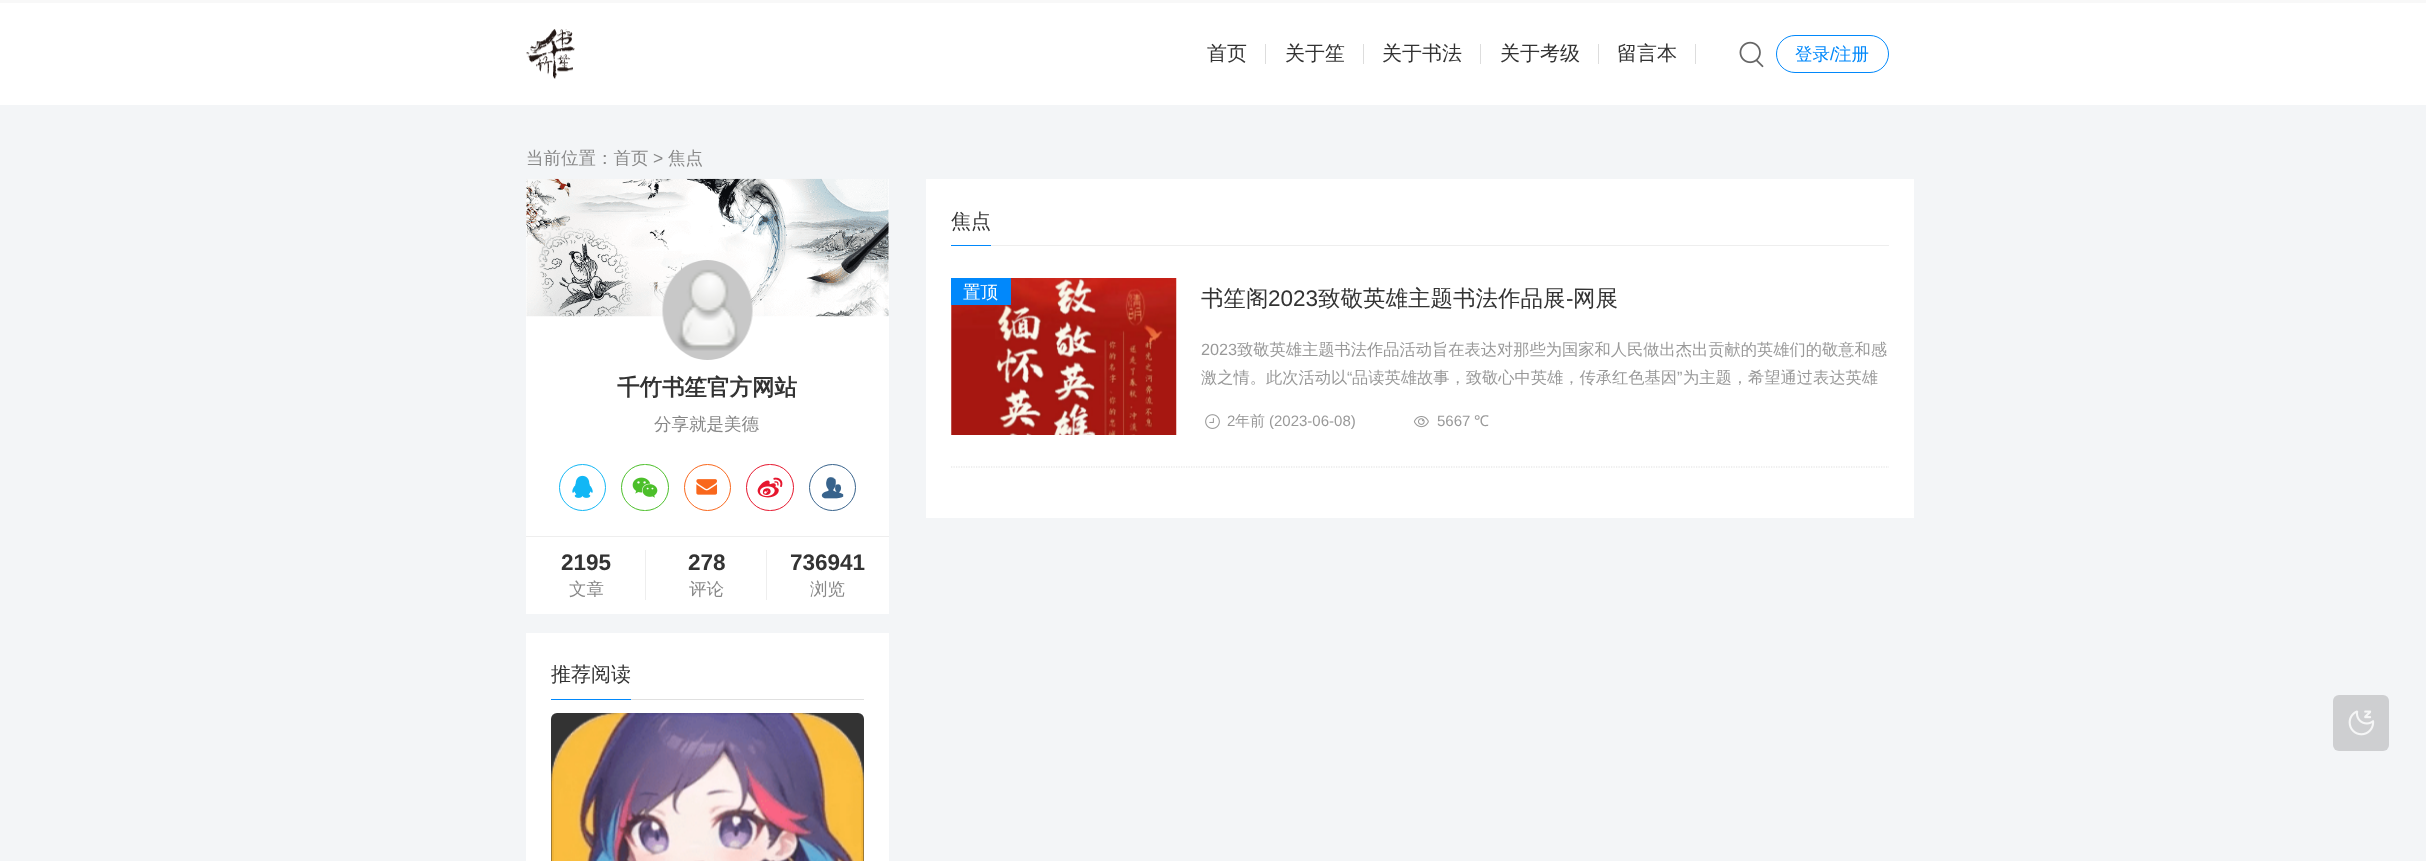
async function draw(canvas) {
  canvas.width = 2426;
  canvas.height = 861;
  const ctx = canvas.getContext('2d');
  ctx.miterLimit = 4;
  ctx.fontKerning = 'normal';
  function label(s, x, y, font, color) {
    ctx.font = font;
    ctx.fillStyle = color;
    ctx.fillText(s, x, y);
  }
  function rect(x, y, w, h, color) {
    ctx.fillStyle = color;
    ctx.fillRect(x, y, w, h);
  }
  function roundedRect(x, y, w, h, r, color) {
    ctx.fillStyle = color;
    ctx.beginPath();
    ctx.roundRect(x, y, w, h, r);
    ctx.fill();
  }
  async function image(src, x, y, w, h) {
    const img = new Image();
    img.src = src;
    await img.decode();
    ctx.drawImage(img, x, y, w, h);
  }
  let path;

  rect(0, 0, 2426, 861, '#fff');
  rect(0, 0, 2426, 3, '#f8f8f8');
  await image('assets/img1.png', 526, 29, 49, 50);
  label('首页', 1207, 60, '500 20px WenQuanYi Zen Hei', '#333');
  rect(1265, 44, 1, 20, '#ddd');
  label('关于笙', 1285, 60, '500 20px WenQuanYi Zen Hei', '#333');
  rect(1363, 44, 1, 20, '#ddd');
  label('关于书法', 1382, 60, '500 20px WenQuanYi Zen Hei', '#333');
  rect(1480, 44, 1, 20, '#ddd');
  label('关于考级', 1500, 60, '500 20px WenQuanYi Zen Hei', '#333');
  rect(1598, 44, 1, 20, '#ddd');
  label('留言本', 1617, 60, '500 20px WenQuanYi Zen Hei', '#333');
  rect(1695, 44, 1, 20, '#ddd');
  await image('assets/img2.png', 1739, 41, 25, 27);
  ctx.beginPath();
  ctx.roundRect(1776.5, 35.5, 112, 37, 18.5);
  ctx.strokeStyle = '#0188fb';
  ctx.stroke();
  label('登录', 1795, 60, '500 17.5px WenQuanYi Zen Hei', '#0188fb');
  label('/', 1830, 60, '17.5px Liberation Sans', '#0188fb');
  label('注册', 1834, 60, '500 17.5px WenQuanYi Zen Hei', '#0188fb');
  rect(0, 105, 2426, 756, '#f3f5f7');
  label('当前位置：首页', 526, 164, '500 17.5px WenQuanYi Zen Hei', '#888');
  label('>', 653, 164, '17.5px Liberation Sans', '#888');
  label('焦点', 668, 164, '500 17.5px WenQuanYi Zen Hei', '#888');
  rect(926, 179, 988, 339, '#fff');
  rect(991, 245, 898, 1, '#eee');
  rect(951, 245, 40, 1, '#0188fb');
  label('焦点', 951, 228, '500 20px WenQuanYi Zen Hei', '#333');
  path = new Path2D('M951 467H1889');
  ctx.strokeStyle = '#e0e0e0';
  ctx.lineWidth = 1.2;
  ctx.setLineDash([1.25, 1.25]);
  ctx.stroke(path);
  await image('assets/img3.png', 951, 278, 226, 157);
  rect(951, 278, 60, 27, '#0188fb');
  label('置顶', 963, 298, '500 17.5px WenQuanYi Zen Hei', '#fff');
  label('书笙阁', 1201, 306, '500 22.5px WenQuanYi Zen Hei', '#333');
  label('2023', 1268, 306, '22.5px Liberation Sans', '#333');
  label('致敬英雄主题书法作品展', 1318, 306, '500 22.5px WenQuanYi Zen Hei', '#333');
  label('-', 1566, 306, '22.5px Liberation Sans', '#333');
  label('网展', 1573, 306, '500 22.5px WenQuanYi Zen Hei', '#333');
  label('2023', 1201, 355, '16.25px Liberation Sans', '#999');
  label('致敬英雄主题书法作品活动旨在表达对那些为国家和人民做出杰出贡献的英雄们的敬意和感', 1237, 355, '500 16.25px WenQuanYi Zen Hei', '#999');
  label('激之情。此次活动以', 1201, 383, '500 16.25px WenQuanYi Zen Hei', '#999');
  label('“', 1347, 383, '16.25px Liberation Sans', '#999');
  label('品读英雄故事，致敬心中英雄，传承红色基因', 1352, 383, '500 16.25px WenQuanYi Zen Hei', '#999');
  label('”', 1677, 383, '16.25px Liberation Sans', '#999');
  label('为主题，希望通过表达英雄', 1683, 383, '500 16.25px WenQuanYi Zen Hei', '#999');
  await image('assets/img4.png', 1205, 414, 15, 15);
  label('2', 1227, 426, '15px Liberation Sans', '#999');
  label('年前', 1235, 426, '500 15px WenQuanYi Zen Hei', '#999');
  label('(2023-06-08)', 1269, 426, '15px Liberation Sans', '#999');
  await image('assets/img5.png', 1413, 416, 16, 12);
  label('5667', 1437, 426, '15px Liberation Sans', '#999');
  label('℃', 1474, 426, '15px Noto Sans', '#999');
  rect(526, 179, 363, 435, '#fff');
  await image('assets/img6.png', 526, 178, 363, 139);
  roundedRect(651, 254, 113, 112, 56, '#ffffff4d');
  await image('assets/img7.png', 662, 260, 91, 100);
  label('千竹书笙官方网站', 617, 395, 'bold 22.5px WenQuanYi Zen Hei', '#333');
  label('分享就是美德', 654, 430, '500 17.5px WenQuanYi Zen Hei', '#888');
  ctx.beginPath();
  ctx.arc(582.5, 487.5, 23, 0, 2 * Math.PI);
  ctx.strokeStyle = '#12b7f5';
  ctx.lineWidth = 1;
  ctx.setLineDash([]);
  ctx.stroke();
  await image('assets/img8.png', 572, 475, 21, 23);
  ctx.beginPath();
  ctx.roundRect(621.5, 464.5, 47, 46, 23);
  ctx.strokeStyle = '#4cbf2a';
  ctx.stroke();
  await image('assets/img9.png', 632, 477, 26, 21);
  ctx.beginPath();
  ctx.arc(707.5, 487.5, 23, 0, 2 * Math.PI);
  ctx.strokeStyle = '#f9671c';
  ctx.stroke();
  await image('assets/img10.png', 696, 479, 22, 16);
  ctx.beginPath();
  ctx.roundRect(746.5, 464.5, 47, 46, 23);
  ctx.strokeStyle = '#e6162d';
  ctx.stroke();
  await image('assets/img11.png', 757, 477, 26, 21);
  ctx.beginPath();
  ctx.arc(832.5, 487.5, 23, 0, 2 * Math.PI);
  ctx.strokeStyle = '#38638c';
  ctx.stroke();
  await image('assets/img12.png', 821, 477, 23, 22);
  rect(526, 536, 363, 1, '#eee');
  label('2195', 561, 570, 'bold 22.5px Liberation Sans', '#333');
  rect(645, 550, 1, 50, '#eee');
  label('文章', 569, 595, '500 17.5px WenQuanYi Zen Hei', '#888');
  label('278', 688, 570, 'bold 22.5px Liberation Sans', '#333');
  rect(766, 550, 1, 50, '#eee');
  label('评论', 689, 595, '500 17.5px WenQuanYi Zen Hei', '#888');
  label('736941', 790, 570, 'bold 22.5px Liberation Sans', '#333');
  label('浏览', 810, 595, '500 17.5px WenQuanYi Zen Hei', '#888');
  rect(526, 633, 363, 228, '#fff');
  rect(631, 699, 233, 1, '#e0e0e0');
  rect(551, 699, 80, 1, '#0188fb');
  label('推荐阅读', 551, 681, '500 20px WenQuanYi Zen Hei', '#333');
  roundedRect(551, 713, 313, 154, 6, '#333');
  await image('assets/img13.png', 551, 713, 313, 148);
  roundedRect(2333, 695, 56, 56, 6, '#cecfd1');
  await image('assets/img14.png', 2348, 710, 27, 26);
}

draw(document.querySelector('canvas'));
